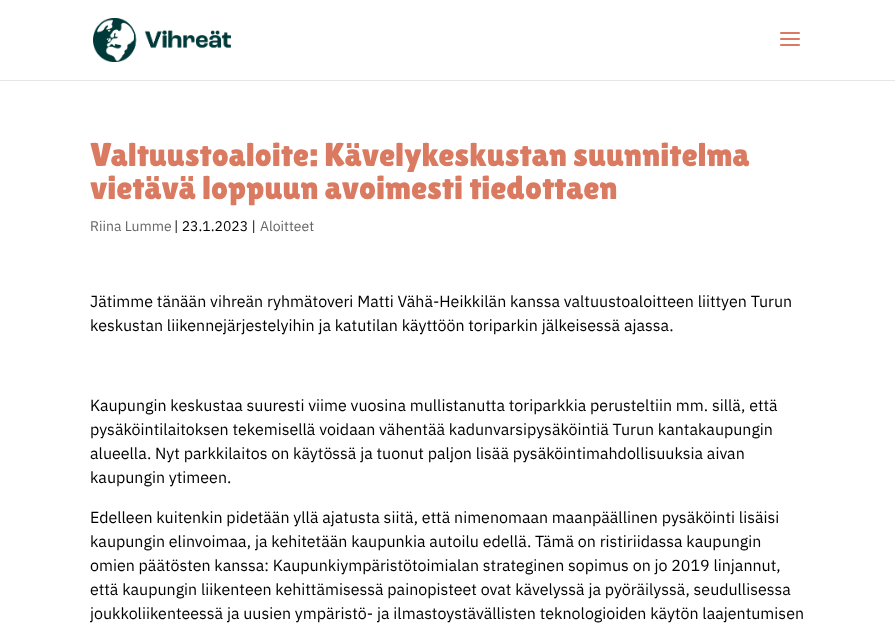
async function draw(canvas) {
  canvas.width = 895;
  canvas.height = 636;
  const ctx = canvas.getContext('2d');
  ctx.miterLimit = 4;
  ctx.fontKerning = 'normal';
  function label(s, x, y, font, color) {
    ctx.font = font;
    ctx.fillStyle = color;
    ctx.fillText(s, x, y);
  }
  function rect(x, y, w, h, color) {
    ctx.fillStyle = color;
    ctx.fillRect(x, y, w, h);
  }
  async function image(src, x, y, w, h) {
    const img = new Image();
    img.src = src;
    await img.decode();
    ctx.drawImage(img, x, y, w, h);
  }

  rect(0, 0, 895, 636, '#fff');
  rect(0, 80, 895, 1, '#e6e6e6');
  await image('assets/img1.png', 93, 18, 138, 44);
  await image('assets/img2.png', 780, 32, 20, 14);
  label('Valtuustoaloite: Kävelykeskustan suunnitelma', 90, 166, '33px Lilita One', '#d97a61');
  label('vietävä loppuun avoimesti tiedottaen', 90, 199, '33px Lilita One', '#d97a61');
  label('Riina Lumme', 90, 231, '14px IBM Plex Sans', '#666');
  label('| 23.1.2023 |', 174, 231, '14px IBM Plex Sans', '#000');
  label('Aloitteet', 260, 231, '14px IBM Plex Sans', '#666');
  label('Jätimme tänään vihreän ryhmätoveri Matti Vähä-Heikkilän kanssa valtuustoaloitteen liittyen Turun', 90, 307, '16px IBM Plex Sans', '#000');
  label('keskustan liikennejärjestelyihin ja katutilan käyttöön toriparkin jälkeisessä ajassa.', 90, 331, '16px IBM Plex Sans', '#000');
  label('Kaupungin keskustaa suuresti viime vuosina mullistanutta toriparkkia perusteltiin mm. sillä, että', 90, 411, '16px IBM Plex Sans', '#000');
  label('pysäköintilaitoksen tekemisellä voidaan vähentää kadunvarsipysäköintiä Turun kantakaupungin', 90, 435, '16px IBM Plex Sans', '#000');
  label('alueella. Nyt parkkilaitos on käytössä ja tuonut paljon lisää pysäköintimahdollisuuksia aivan', 90, 459, '16px IBM Plex Sans', '#000');
  label('kaupungin ytimeen.', 90, 483, '16px IBM Plex Sans', '#000');
  label('Edelleen kuitenkin pidetään yllä ajatusta siitä, että nimenomaan maanpäällinen pysäköinti lisäisi', 90, 523, '16px IBM Plex Sans', '#000');
  label('kaupungin elinvoimaa, ja kehitetään kaupunkia autoilu edellä. Tämä on ristiriidassa kaupungin', 90, 547, '16px IBM Plex Sans', '#000');
  label('omien päätösten kanssa: Kaupunkiympäristötoimialan strateginen sopimus on jo 2019 linjannut,', 90, 571, '16px IBM Plex Sans', '#000');
  label('että kaupungin liikenteen kehittämisessä painopisteet ovat kävelyssä ja pyöräilyssä, seudullisessa', 90, 595, '16px IBM Plex Sans', '#000');
  label('joukkoliikenteessä ja uusien ympäristö- ja ilmastoystävällisten teknologioiden käytön laajentumisen', 90, 619, '16px IBM Plex Sans', '#000');
}

draw(document.querySelector('canvas'));
